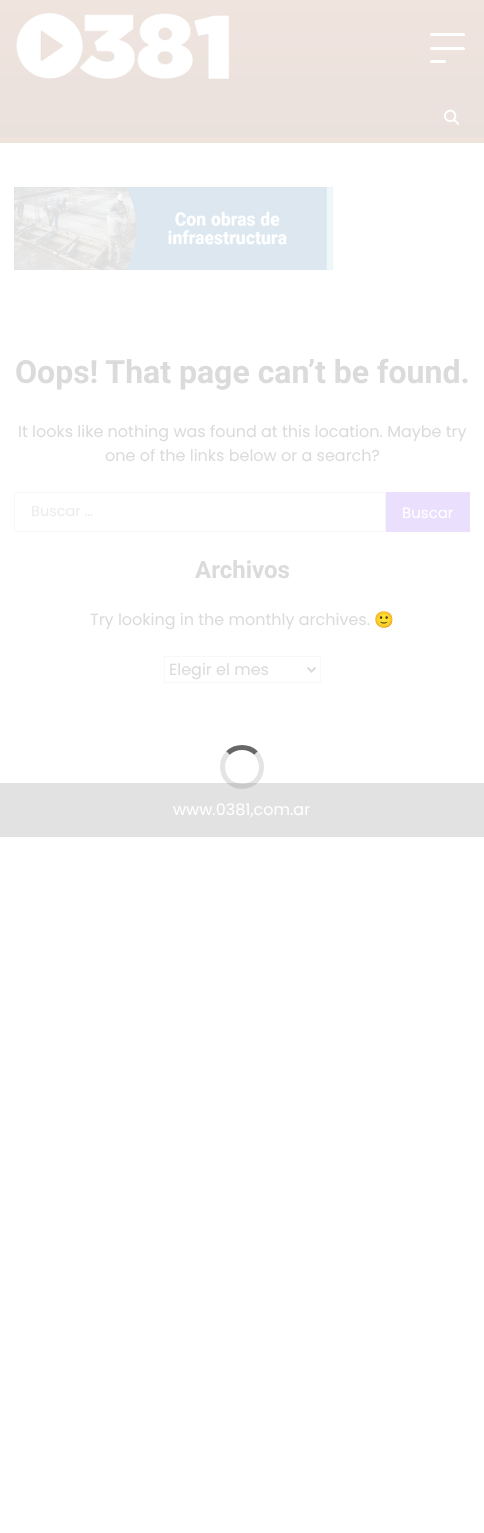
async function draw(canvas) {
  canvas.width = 484;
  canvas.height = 1533;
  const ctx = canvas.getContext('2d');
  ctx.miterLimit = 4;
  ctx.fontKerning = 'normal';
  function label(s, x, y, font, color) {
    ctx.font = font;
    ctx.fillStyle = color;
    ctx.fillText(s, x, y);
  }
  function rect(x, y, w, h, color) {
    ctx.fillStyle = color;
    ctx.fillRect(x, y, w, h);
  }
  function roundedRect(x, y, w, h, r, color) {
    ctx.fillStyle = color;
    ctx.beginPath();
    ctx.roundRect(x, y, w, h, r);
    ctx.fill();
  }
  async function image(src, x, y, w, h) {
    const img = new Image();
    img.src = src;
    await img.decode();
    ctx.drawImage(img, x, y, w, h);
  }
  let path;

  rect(0, 0, 484, 1533, '#fff');
  await image('assets/img1.png', 0, 0, 484, 143);
  await image('assets/img2.png', 16, 12, 214, 67);
  roundedRect(430, 33, 35, 3, 1.5, '#fff');
  roundedRect(430, 47, 35, 3, 1.5, '#fff');
  roundedRect(430, 60, 16, 3, 1.5, '#fff');
  await image('assets/img3.png', 444, 109, 16, 16);
  await image('assets/img4.png', 14, 187, 319, 83);
  label('Oops! That page can’t be found.', 15, 383, 'bold 32px Roboto', '#dbdbdb');
  label('It looks like nothing was found at this location. Maybe try', 18, 437, '16px Poppins', '#dbdbdb');
  label('one of the links below or a search?', 105, 461, '16px Poppins', '#dbdbdb');
  ctx.strokeStyle = '#f9f8f9';
  ctx.strokeRect(14.5, 492.5, 371, 39);
  label('Buscar …', 31, 516, '14.5px Poppins', '#ececec');
  rect(386, 492, 84, 40, '#eae0fe');
  label('Buscar', 402, 518, '15px Poppins', '#fff');
  label('Archivos', 195, 578, 'bold 24px Roboto', '#dbdbdb');
  label('Try looking in the monthly archives.', 90, 625, '16px Poppins', '#dbdbdb');
  label('🙂', 374, 625, '16px Noto Color Emoji', '#dbdbdb');
  ctx.strokeStyle = '#f8f8f8';
  ctx.strokeRect(164.5, 656.5, 156, 26);
  path = new Path2D('M307.5 667.5L311.5 671.5L315.5 667.5');
  ctx.strokeStyle = '#dbdbdb';
  ctx.lineWidth = 2;
  ctx.stroke(path);
  label('Elegir el mes', 169, 675, '16px Poppins', '#dbdbdb');
  path = new Path2D('M228 753C235.5 745.5 248.5 745.5 256 753');
  ctx.strokeStyle = '#676767';
  ctx.lineWidth = 5;
  ctx.stroke(path);
  rect(0, 783, 484, 54, '#e2e2e2');
  path = new Path2D('M256 753C259.5 757 261.5 762 261.5 767C261.5 790.5 227.5 793.5 223 771C221.5 764.5 223.5 758 228 753');
  ctx.strokeStyle = '#1d1d1d1f';
  ctx.stroke(path);
  label('www.0381,com.ar', 173, 815, '16px Poppins', '#fff');
}

draw(document.querySelector('canvas'));
